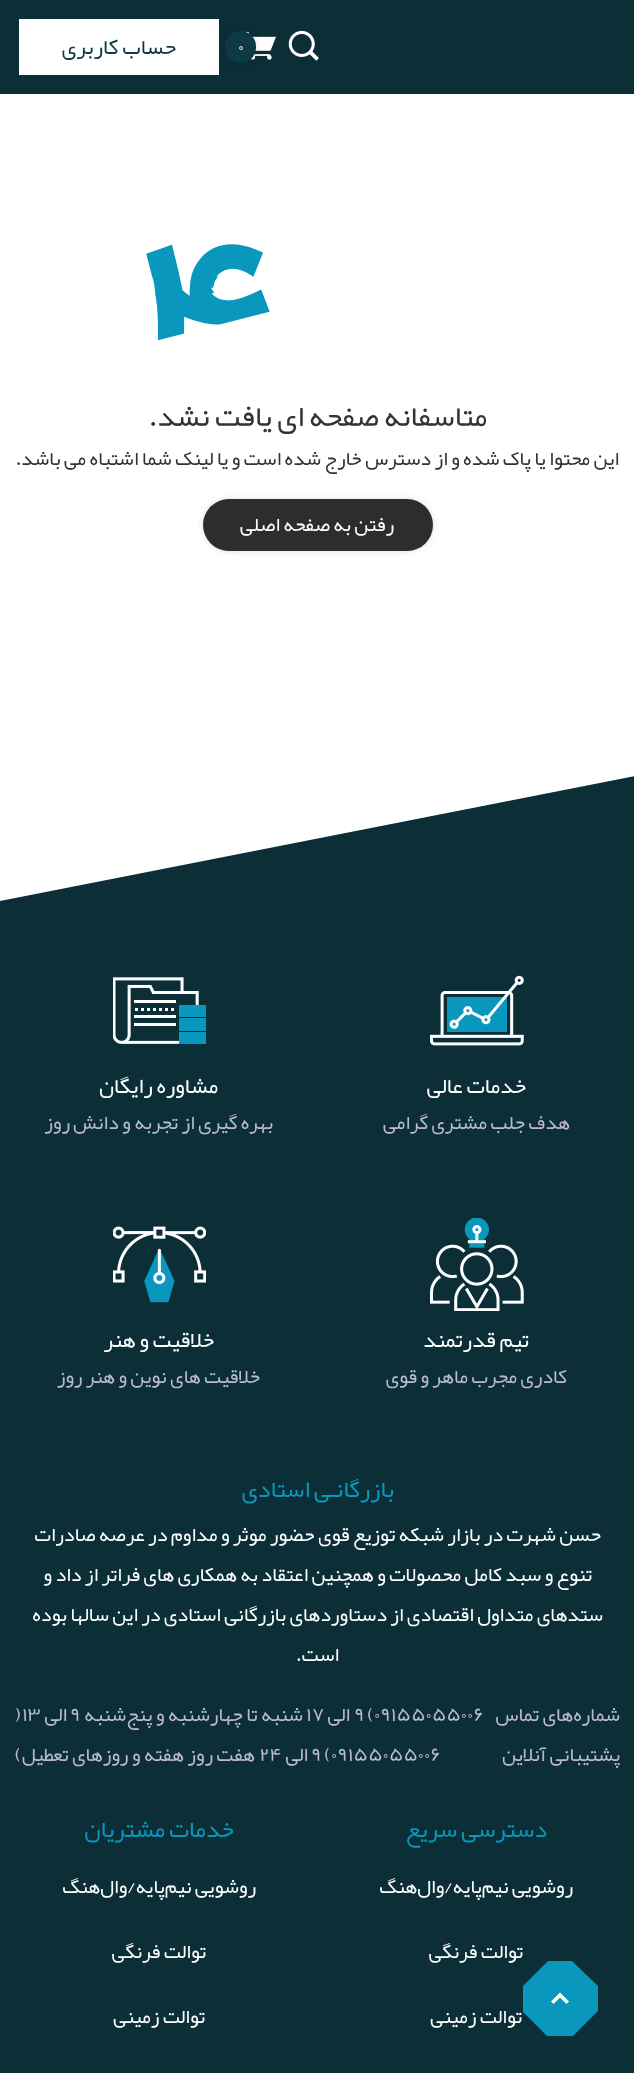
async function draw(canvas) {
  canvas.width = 634;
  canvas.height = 2073;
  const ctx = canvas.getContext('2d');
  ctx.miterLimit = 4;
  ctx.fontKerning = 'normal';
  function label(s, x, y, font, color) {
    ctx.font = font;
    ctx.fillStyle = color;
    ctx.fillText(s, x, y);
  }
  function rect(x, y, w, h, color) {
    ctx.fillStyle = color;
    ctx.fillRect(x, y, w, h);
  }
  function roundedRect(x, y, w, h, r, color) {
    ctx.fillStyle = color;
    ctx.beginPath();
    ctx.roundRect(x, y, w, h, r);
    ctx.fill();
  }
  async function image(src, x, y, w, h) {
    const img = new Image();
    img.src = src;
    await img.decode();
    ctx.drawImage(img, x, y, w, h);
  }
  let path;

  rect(0, 0, 634, 2073, '#fff');
  rect(0, 0, 634, 94, '#0b2e37');
  await image('assets/img1.png', 288, 30, 31, 31);
  await image('assets/img2.png', 244, 31, 32, 29);
  ctx.fillStyle = '#1e191e26';
  ctx.filter = 'blur(3px)';
  ctx.beginPath();
  ctx.roundRect(225, 31, 31, 32, 15.5);
  ctx.fill();
  ctx.filter = 'none';
  roundedRect(225, 31, 31, 32, 15.5, '#0e3a46');
  label('۰', 238, 53, '19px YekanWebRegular', '#fff');
  rect(19, 19, 200, 56, '#fff');
  ctx.direction = 'rtl';
  label('حساب کاربری', 176, 54, '22px YekanWebRegular', '#0e3a46');
  ctx.save();
  path = new Path2D('M129.5 79H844L505.5 251.5L129.5 347.5Z');
  ctx.clip(path);
  ctx.direction = 'ltr';
  label('۴', 129, 398, 'bold 240px YekanWebRegular', '#0997bd');
  ctx.restore();
  label('متاسفانه صفحه', 487, 426, '30px YekanWebRegular', '#333');
  label('ای یافت نشد.', 304, 426, '30px YekanWebRegular', '#333');
  label('این محتوا یا پاک شده و از دسترس خارج شده است و یا لینک شما اشتباه می باشد.', 619, 465, '20px YekanWebRegular', '#333');
  ctx.fillStyle = '#1e191e26';
  ctx.filter = 'blur(3px)';
  ctx.beginPath();
  ctx.roundRect(203, 499, 230, 52, 26);
  ctx.fill();
  ctx.filter = 'none';
  roundedRect(203, 499, 230, 52, 26, '#2d2d2d');
  label('رفتن به صفحه اصلی', 394, 531, '20px YekanWebRegular', '#fff');
  rect(0, 776, 634, 1297, '#0b2e37');
  ctx.fillStyle = '#fff';
  path = new Path2D('M0 901V776H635Z');
  ctx.fill(path);
  await image('assets/img3.png', 430, 975, 94, 71);
  label('خدمات عالی', 526, 1093, '22px YekanWebRegular', '#fff');
  label('هدف جلب مشتری گرامی', 570, 1129, '20px YekanWebRegular', '#bbbacc');
  await image('assets/img4.png', 113, 977, 93, 67);
  label('مشاوره رایگان', 218, 1093, '22px YekanWebRegular', '#fff');
  label('بهره گیری از تجربه و دانش روز', 273, 1129, '20px YekanWebRegular', '#bbbacc');
  await image('assets/img5.png', 430, 1218, 94, 93);
  label('تیم قدرتمند', 529, 1347, '22px YekanWebRegular', '#fff');
  label('کادری مجرب ماهر و قوی', 567, 1383, '20px YekanWebRegular', '#bbbacc');
  await image('assets/img6.png', 113, 1226, 93, 77);
  label('خلاقیت و هنر', 214, 1347, '22px YekanWebRegular', '#fff');
  label('خلاقیت های نوین و هنر روز', 260, 1383, '20px YekanWebRegular', '#bbbacc');
  label('بازرگانـی استادی', 394, 1497, '24px YekanWebRegular', '#0997bd');
  label('حسن شهرت در بازار شبکه توزیع قوی حضور موثر و مداوم در عرصه صادرات', 601, 1541, '20px YekanWebRegular', '#fff');
  label('تنوع و سبد کامل محصولات و همچنین اعتقاد به همکاری های فراتر از داد و', 592, 1581, '20px YekanWebRegular', '#fff');
  label('ستدهای متداول اقتصادی از دستاوردهای بازرگانی استادی در این سالها بوده', 603, 1621, '20px YekanWebRegular', '#fff');
  label('است.', 339, 1661, '20px YekanWebRegular', '#fff');
  label('شماره‌های تماس', 620, 1721, '20px YekanWebRegular', '#bbbacc');
  ctx.direction = 'ltr';
  label('(۰۹۱۵۵۰۵۵۰۰۶', 367, 1721, '20px YekanWebRegular', '#bbbacc');
  label('۹', 354, 1721, '20px YekanWebRegular', '#bbbacc');
  ctx.direction = 'rtl';
  label('الی', 350, 1721, '20px YekanWebRegular', '#bbbacc');
  ctx.direction = 'ltr';
  label('۱۷', 306, 1721, '20px YekanWebRegular', '#bbbacc');
  ctx.direction = 'rtl';
  label('شنبه تا چهارشنبه و پنج‌شنبه', 303, 1721, '20px YekanWebRegular', '#bbbacc');
  ctx.direction = 'ltr';
  label('۹', 70, 1721, '20px YekanWebRegular', '#bbbacc');
  ctx.direction = 'rtl';
  label('الی', 67, 1721, '20px YekanWebRegular', '#bbbacc');
  ctx.direction = 'ltr';
  label('۱۳', 22, 1721, '20px YekanWebRegular', '#bbbacc');
  label(')', 15, 1721, '20px YekanWebRegular', '#bbbacc');
  ctx.direction = 'rtl';
  label('پشتیبانی آنلاین', 620, 1761, '20px YekanWebRegular', '#bbbacc');
  ctx.direction = 'ltr';
  label('(۰۹۱۵۵۰۵۵۰۰۶', 324, 1761, '20px YekanWebRegular', '#bbbacc');
  label('۹', 311, 1761, '20px YekanWebRegular', '#bbbacc');
  ctx.direction = 'rtl';
  label('الی', 308, 1761, '20px YekanWebRegular', '#bbbacc');
  ctx.direction = 'ltr';
  label('۲۴', 259, 1761, '20px YekanWebRegular', '#bbbacc');
  ctx.direction = 'rtl';
  label('هفت روز هفته و روزهای تعطیل)', 255, 1761, '20px YekanWebRegular', '#bbbacc');
  label('دسترسی سریع', 547, 1837, '24px YekanWebRegular', '#0997bd');
  label('روشویی نیم‌پایه/وال‌هنگ', 573, 1893, '20px YekanWebRegular', '#fff');
  label('توالت فرنگی', 523, 1958, '20px YekanWebRegular', '#fff');
  label('توالت زمینی', 522, 2023, '20px YekanWebRegular', '#fff');
  label('خدمات مشتریان', 234, 1837, '24px YekanWebRegular', '#0997bd');
  label('روشویی نیم‌پایه/وال‌هنگ', 256, 1893, '20px YekanWebRegular', '#fff');
  label('توالت فرنگی', 206, 1958, '20px YekanWebRegular', '#fff');
  label('توالت زمینی', 205, 2023, '20px YekanWebRegular', '#fff');
  ctx.fillStyle = '#0997bd';
  path = new Path2D('M548 1961H572L598 1986V2011L573 2036H547L523 2012V1986Z');
  ctx.fill(path);
  ctx.fillStyle = '#fff';
  path = new Path2D('M553.5 2004L560 1997.5L566.5 2004L569 2001.5L560 1992.5L551 2001.5Z');
  ctx.fill(path);
}

draw(document.querySelector('canvas'));
